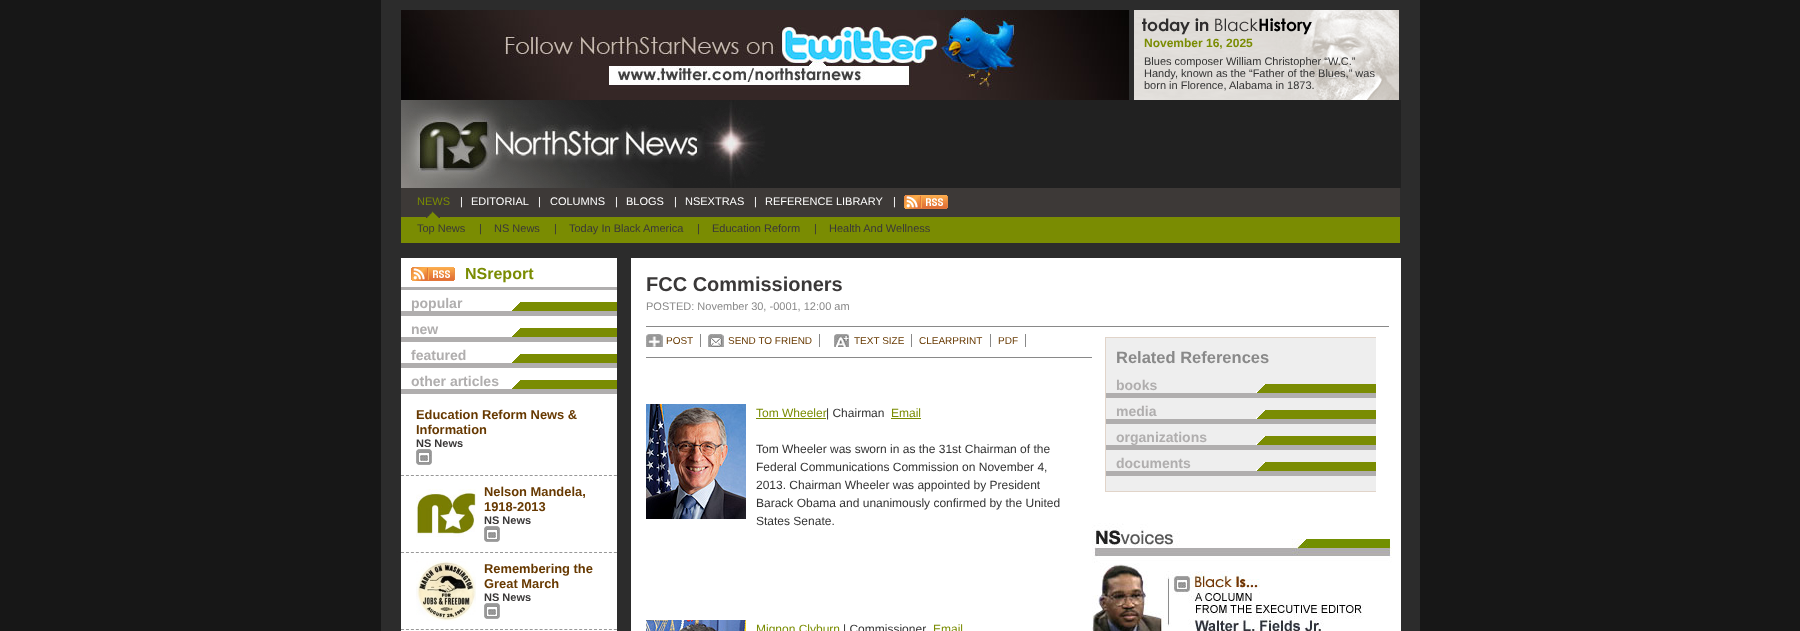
async function draw(canvas) {
  canvas.width = 1800;
  canvas.height = 631;
  const ctx = canvas.getContext('2d');
  ctx.miterLimit = 4;
  ctx.fontKerning = 'normal';
  function label(s, x, y, font, color) {
    ctx.font = font;
    ctx.fillStyle = color;
    ctx.fillText(s, x, y);
  }
  function rect(x, y, w, h, color) {
    ctx.fillStyle = color;
    ctx.fillRect(x, y, w, h);
  }
  async function image(src, x, y, w, h) {
    const img = new Image();
    img.src = src;
    await img.decode();
    ctx.drawImage(img, x, y, w, h);
  }
  let path;

  rect(0, 0, 1800, 631, '#171717');
  rect(381, 0, 1039, 631, '#2c2c2c');
  await image('assets/img1.png', 401, 10, 728, 90);
  await image('assets/img2.png', 1134, 10, 265, 90);
  label('November 16, 2025', 1144, 47, 'bold 12px Liberation Sans', '#7a8c02');
  label('Blues composer William Christopher “W.C.”', 1144, 65, '11px Liberation Sans', '#333');
  label('Handy, known as the “Father of the Blues,” was', 1144, 77, '11px Liberation Sans', '#333');
  label('born in Florence, Alabama in 1873.', 1144, 89, '11px Liberation Sans', '#333');
  rect(765, 100, 636, 88, '#212121');
  await image('assets/img3.png', 401, 100, 364, 88);
  rect(401, 188, 999, 29, '#3d3937');
  await image('assets/img4.png', 904, 195, 44, 14);
  rect(401, 217, 999, 26, '#7a8c02');
  await image('assets/img5.png', 426, 211, 14, 7);
  label('NEWS', 417, 205, '11px Liberation Sans', '#7a8c02');
  label('Top News', 417, 232, '11px Liberation Sans', '#3a3838');
  label('|', 479, 232, '11px Liberation Sans', '#3a3838');
  label('NS News', 494, 232, '11px Liberation Sans', '#3a3838');
  label('|', 554, 232, '11px Liberation Sans', '#3a3838');
  label('Today In Black America', 569, 232, '11px Liberation Sans', '#3a3838');
  label('|', 697, 232, '11px Liberation Sans', '#3a3838');
  label('Education Reform', 712, 232, '11px Liberation Sans', '#3a3838');
  label('|', 814, 232, '11px Liberation Sans', '#3a3838');
  label('Health And Wellness', 829, 232, '11px Liberation Sans', '#3a3838');
  label('|', 460, 205, '11px Liberation Sans', '#fff');
  label('EDITORIAL', 471, 205, '11px Liberation Sans', '#fff');
  label('|', 538, 205, '11px Liberation Sans', '#fff');
  label('COLUMNS', 550, 205, '11px Liberation Sans', '#fff');
  label('|', 615, 205, '11px Liberation Sans', '#fff');
  label('BLOGS', 626, 205, '11px Liberation Sans', '#fff');
  label('|', 674, 205, '11px Liberation Sans', '#fff');
  label('NSEXTRAS', 685, 205, '11px Liberation Sans', '#fff');
  label('|', 754, 205, '11px Liberation Sans', '#fff');
  label('REFERENCE LIBRARY', 765, 205, '11px Liberation Sans', '#fff');
  label('|', 893, 205, '11px Liberation Sans', '#fff');
  await image('assets/img6.png', 401, 258, 1000, 373);
  await image('assets/img7.png', 411, 267, 44, 14);
  label('NSreport', 465, 279, 'bold 16px Liberation Sans', '#7a8c02');
  rect(401, 287, 216, 3, '#b0aeae');
  await image('assets/img8.png', 512, 302, 105, 9);
  rect(401, 311, 216, 5, '#b0aeae');
  label('popular', 411, 308, 'bold 14px Liberation Sans', '#b0aeae');
  await image('assets/img8.png', 512, 328, 105, 9);
  rect(401, 337, 216, 5, '#b0aeae');
  label('new', 411, 334, 'bold 14px Liberation Sans', '#b0aeae');
  await image('assets/img8.png', 512, 354, 105, 9);
  rect(401, 363, 216, 5, '#b0aeae');
  label('featured', 411, 360, 'bold 14px Liberation Sans', '#b0aeae');
  await image('assets/img8.png', 512, 380, 105, 9);
  rect(401, 389, 216, 5, '#b0aeae');
  label('other articles', 411, 386, 'bold 14px Liberation Sans', '#b0aeae');
  path = new Path2D('M401 475.5H617');
  ctx.strokeStyle = '#989898';
  ctx.setLineDash([3, 1.95]);
  ctx.stroke(path);
  label('Education Reform News &', 416, 419, 'bold 12.9px Liberation Sans', '#673901');
  label('Information', 416, 434, 'bold 12.9px Liberation Sans', '#673901');
  label('NS News', 416, 447, 'bold 11px Liberation Sans', '#3a3838');
  await image('assets/img9.png', 416, 449, 16, 16);
  path = new Path2D('M401 552.5H617');
  ctx.stroke(path);
  await image('assets/img10.png', 416, 489, 60, 48);
  label('Nelson Mandela,', 484, 496, 'bold 12.9px Liberation Sans', '#673901');
  label('1918-2013', 484, 511, 'bold 12.9px Liberation Sans', '#673901');
  label('NS News', 484, 524, 'bold 11px Liberation Sans', '#3a3838');
  await image('assets/img9.png', 484, 526, 16, 16);
  path = new Path2D('M401 629.5H617');
  ctx.stroke(path);
  await image('assets/img11.png', 416, 561, 60, 60);
  label('Remembering the', 484, 573, 'bold 12.9px Liberation Sans', '#673901');
  label('Great March', 484, 588, 'bold 12.9px Liberation Sans', '#673901');
  label('NS News', 484, 601, 'bold 11px Liberation Sans', '#3a3838');
  await image('assets/img9.png', 484, 603, 16, 16);
  label('FCC Commissioners', 646, 291, 'bold 20px Liberation Sans', '#3a3838');
  label('POSTED: November 30, -0001, 12:00 am', 646, 310, '11px Liberation Sans', '#898989');
  rect(646, 357, 446, 1, '#898989');
  await image('assets/img12.png', 646, 334, 17, 13);
  rect(700, 334, 1, 13, '#898989');
  label('POST', 666, 344, '10px Liberation Sans', '#673901');
  await image('assets/img13.png', 708, 334, 16, 13);
  rect(819, 334, 1, 13, '#898989');
  label('SEND TO FRIEND', 728, 344, '10px Liberation Sans', '#673901');
  await image('assets/img14.png', 834, 334, 16, 13);
  rect(911, 334, 1, 13, '#898989');
  label('TEXT SIZE', 854, 344, '10px Liberation Sans', '#673901');
  rect(990, 334, 1, 13, '#898989');
  label('CLEARPRINT', 919, 344, '10px Liberation Sans', '#673901');
  rect(1025, 334, 1, 13, '#898989');
  label('PDF', 998, 344, '10px Liberation Sans', '#673901');
  await image('assets/img15.png', 646, 404, 100, 115);
  label('Tom Wheeler', 756, 417, '12px Liberation Sans', '#7a8c02');
  rect(756, 418, 70, 1, '#7a8c02');
  label('| Chairman', 826, 417, '12px Liberation Sans', '#333');
  label('Email', 891, 417, '12px Liberation Sans', '#7a8c02');
  rect(891, 418, 30, 1, '#7a8c02');
  label('Tom Wheeler was sworn in as the 31st Chairman of the', 756, 453, '12px Liberation Sans', '#333');
  label('Federal Communications Commission on November 4,', 756, 471, '12px Liberation Sans', '#333');
  label('2013. Chairman Wheeler was appointed by President', 756, 489, '12px Liberation Sans', '#333');
  label('Barack Obama and unanimously confirmed by the United', 756, 507, '12px Liberation Sans', '#333');
  label('States Senate.', 756, 525, '12px Liberation Sans', '#333');
  await image('assets/img16.png', 646, 620, 100, 11);
  label('Mignon Clyburn', 756, 633, '12px Liberation Sans', '#7a8c02');
  label('| Commissioner', 843, 633, '12px Liberation Sans', '#333');
  label('Email', 933, 633, '12px Liberation Sans', '#7a8c02');
  rect(646, 326, 743, 1, '#898989');
  rect(1106, 338, 270, 153, '#eee');
  rect(1105, 337, 271, 1, '#e1d4c9');
  rect(1105, 491, 271, 1, '#e1d4c9');
  rect(1105, 337, 1, 155, '#e1d4c9');
  label('Related References', 1116, 363, 'bold 16.5px Liberation Sans', '#898989');
  await image('assets/img17.png', 1256, 384, 120, 9);
  rect(1106, 393, 270, 5, '#b0aeae');
  label('books', 1116, 390, 'bold 14px Liberation Sans', '#b0aeae');
  await image('assets/img17.png', 1256, 410, 120, 9);
  rect(1106, 419, 270, 5, '#b0aeae');
  label('media', 1116, 416, 'bold 14px Liberation Sans', '#b0aeae');
  await image('assets/img17.png', 1256, 436, 120, 9);
  rect(1106, 445, 270, 5, '#b0aeae');
  label('organizations', 1116, 442, 'bold 14px Liberation Sans', '#b0aeae');
  await image('assets/img17.png', 1256, 462, 120, 9);
  rect(1106, 471, 270, 5, '#b0aeae');
  label('documents', 1116, 468, 'bold 14px Liberation Sans', '#b0aeae');
  await image('assets/img18.png', 1092, 523, 300, 40);
  await image('assets/img19.png', 1092, 563, 272, 68);
}

draw(document.querySelector('canvas'));
